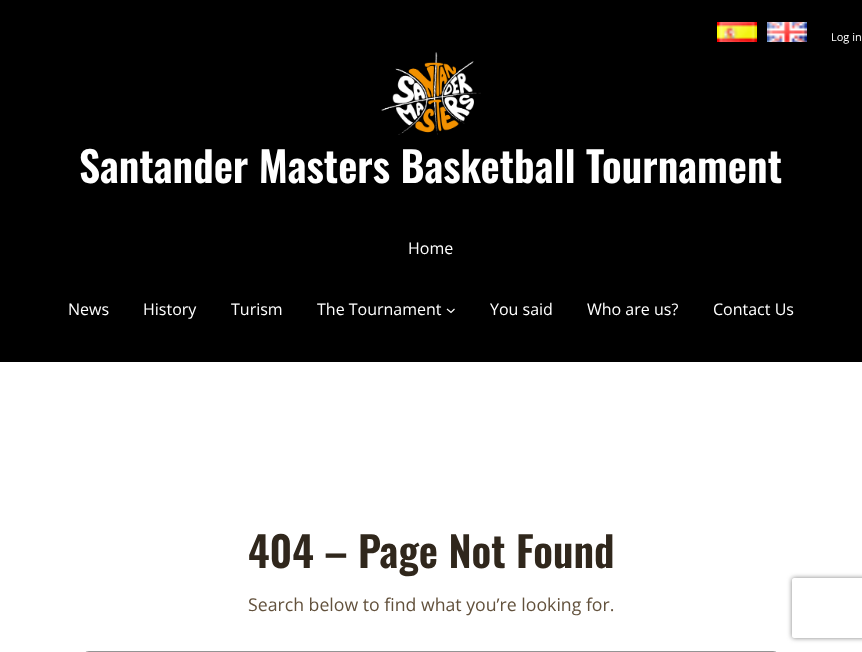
async function draw(canvas) {
  canvas.width = 862;
  canvas.height = 652;
  const ctx = canvas.getContext('2d');
  ctx.miterLimit = 4;
  ctx.fontKerning = 'normal';
  function label(s, x, y, font, color) {
    ctx.font = font;
    ctx.fillStyle = color;
    ctx.fillText(s, x, y);
  }
  function rect(x, y, w, h, color) {
    ctx.fillStyle = color;
    ctx.fillRect(x, y, w, h);
  }
  async function image(src, x, y, w, h) {
    const img = new Image();
    img.src = src;
    await img.decode();
    ctx.drawImage(img, x, y, w, h);
  }
  let path;

  rect(0, 0, 862, 652, '#fff');
  rect(0, 0, 862, 362, '#000');
  await image('assets/img1.png', 717, 22, 40, 20);
  await image('assets/img2.png', 767, 22, 40, 20);
  label('Log in', 831, 41, '11px Open Sans', '#fff');
  await image('assets/img3.png', 381, 52, 100, 83);
  label('Santander Masters Basketball Tournament', 79, 183, '600 41.8px Oswald', '#fff');
  label('Home', 408, 254, '16px Open Sans', '#fff');
  label('News', 68, 315, '16px Open Sans', '#fff');
  label('History', 143, 315, '16px Open Sans', '#fff');
  label('Turism', 231, 315, '16px Open Sans', '#fff');
  label('The Tournament', 317, 315, '16px Open Sans', '#fff');
  path = new Path2D('M447 309L451 312.5L454.5 309');
  ctx.strokeStyle = '#fff';
  ctx.lineWidth = 1.2;
  ctx.stroke(path);
  label('You said', 490, 315, '16px Open Sans', '#fff');
  label('Who are us?', 587, 315, '16px Open Sans', '#fff');
  label('Contact Us', 713, 315, '16px Open Sans', '#fff');
  label('404 – Page Not Found', 248, 568, '600 41.8px Oswald', '#30271c');
  label('Search below to find what you’re looking for.', 248, 611, '17.7px Open Sans', '#62513c');
  ctx.beginPath();
  ctx.roundRect(81.5, 651.5, 699, 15, 13.5);
  ctx.strokeStyle = '#949494';
  ctx.lineWidth = 1;
  ctx.stroke();
  ctx.save();
  path = new Path2D('M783 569H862V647H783ZM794 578H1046C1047 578 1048 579 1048 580V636C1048 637 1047 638 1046 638H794C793 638 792 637 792 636V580C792 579 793 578 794 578Z');
  ctx.clip(path, 'evenodd');
  ctx.fillStyle = '#808080';
  ctx.filter = 'blur(2.5px)';
  ctx.beginPath();
  ctx.roundRect(792, 578, 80, 60, 2);
  ctx.fill();
  ctx.filter = 'none';
  ctx.restore();
}

draw(document.querySelector('canvas'));
